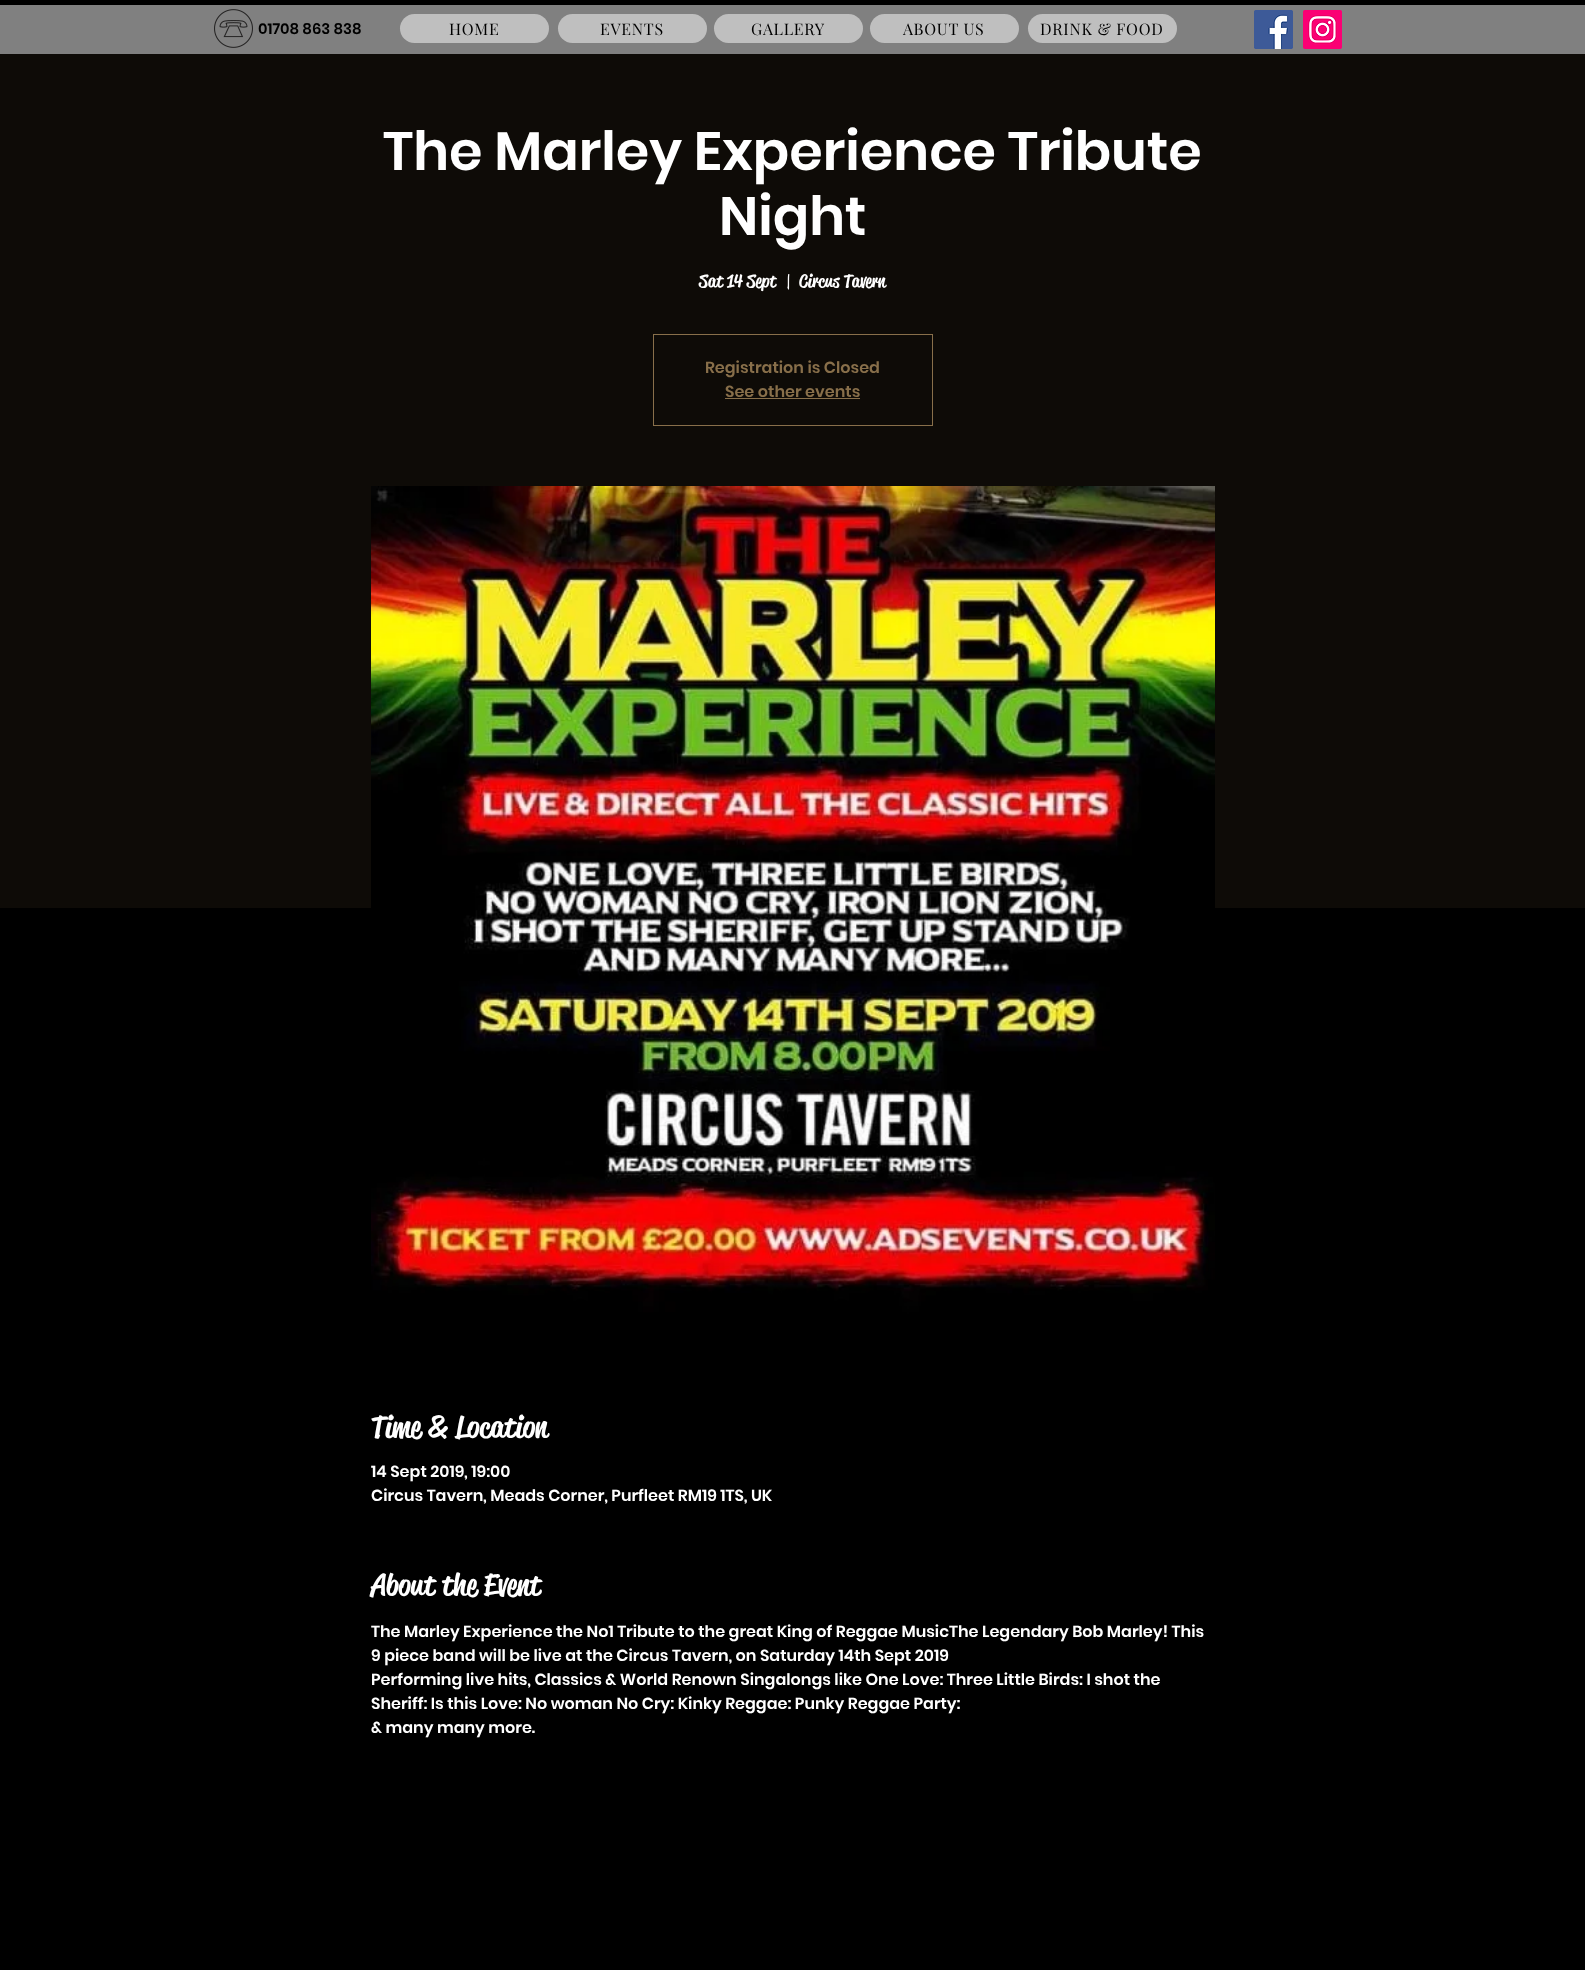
async function draw(canvas) {
  canvas.width = 1585;
  canvas.height = 1970;
  const ctx = canvas.getContext('2d');
  ctx.miterLimit = 4;
  ctx.fontKerning = 'normal';
  function label(s, x, y, font, color) {
    ctx.font = font;
    ctx.fillStyle = color;
    ctx.fillText(s, x, y);
  }
  function rect(x, y, w, h, color) {
    ctx.fillStyle = color;
    ctx.fillRect(x, y, w, h);
  }
  function roundedRect(x, y, w, h, r, color) {
    ctx.fillStyle = color;
    ctx.beginPath();
    ctx.roundRect(x, y, w, h, r);
    ctx.fill();
  }
  async function image(src, x, y, w, h) {
    const img = new Image();
    img.src = src;
    await img.decode();
    ctx.drawImage(img, x, y, w, h);
  }

  rect(0, 0, 1585, 1970, '#000');
  rect(0, 5, 1585, 49, '#808080');
  await image('assets/img1.png', 214, 9, 39, 39);
  label('01708 863 838', 258, 34, '600 15px Poppins', '#000');
  roundedRect(400, 14, 149, 29, 14.5, '#bfbfbf');
  ctx.letterSpacing = '0.75px';
  label('HOME', 449, 35, '16px Playfair Display', '#000');
  roundedRect(558, 14, 149, 29, 14.5, '#bfbfbf');
  label('EVENTS', 600, 35, '16px Playfair Display', '#000');
  roundedRect(714, 14, 149, 29, 14.5, '#bfbfbf');
  label('GALLERY', 751, 35, '16px Playfair Display', '#000');
  roundedRect(870, 14, 149, 29, 14.5, '#bfbfbf');
  label('ABOUT US', 903, 35, '16px Playfair Display', '#000');
  roundedRect(1028, 14, 149, 29, 14.5, '#bfbfbf');
  label('DRINK & FOOD', 1040, 35, '16px Playfair Display', '#000');
  await image('assets/img2.png', 1254, 10, 39, 39);
  await image('assets/img3.png', 1303, 10, 39, 39);
  rect(0, 54, 1585, 854, '#0e0b07');
  ctx.letterSpacing = '0px';
  label('The Marley Experience Tribute', 383, 170, '600 54px Poppins', '#fff');
  label('Night', 719, 235, '600 54px Poppins', '#fff');
  label('Sat 14 Sept', 699, 287, '500 18px "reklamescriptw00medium"', '#fff');
  label('|', 785, 287, '500 18px "reklamescriptw00medium"', '#fff');
  label('Circus Tavern', 799, 287, '500 18px "reklamescriptw00medium"', '#fff');
  ctx.strokeStyle = '#886f4a';
  ctx.strokeRect(653.5, 334.5, 279, 91);
  label('Registration is Closed', 705, 373, '600 16px Poppins', '#886f4a');
  label('See other events', 725, 397, '600 16px Poppins', '#886f4a');
  rect(725, 398, 135, 1, '#886f4a');
  await image('assets/img4.png', 371, 486, 844, 844);
  label('Time & Location', 371, 1437, '500 30px "reklamescriptw00medium"', '#fff');
  label('14 Sept 2019, 19:00', 371, 1477, '600 16px Poppins', '#fff');
  label('Circus Tavern, Meads Corner, Purfleet RM19 1TS, UK', 371, 1501, '600 16px Poppins', '#fff');
  label('About the Event', 371, 1595, '500 30px "reklamescriptw00medium"', '#fff');
  label('The Marley Experience the No1 Tribute to the great King of Reggae MusicThe Legendary Bob Marley! This', 371, 1637, '600 16px Poppins', '#fff');
  label('9 piece band will be live at the Circus Tavern, on Saturday 14th Sept 2019', 371, 1661, '600 16px Poppins', '#fff');
  label('Performing live hits, Classics & World Renown Singalongs like One Love: Three Little Birds: I shot the', 371, 1685, '600 16px Poppins', '#fff');
  label('Sheriff: Is this Love: No woman No Cry: Kinky Reggae: Punky Reggae Party:', 371, 1709, '600 16px Poppins', '#fff');
  label('& many many more.', 371, 1733, '600 16px Poppins', '#fff');
}

draw(document.querySelector('canvas'));
